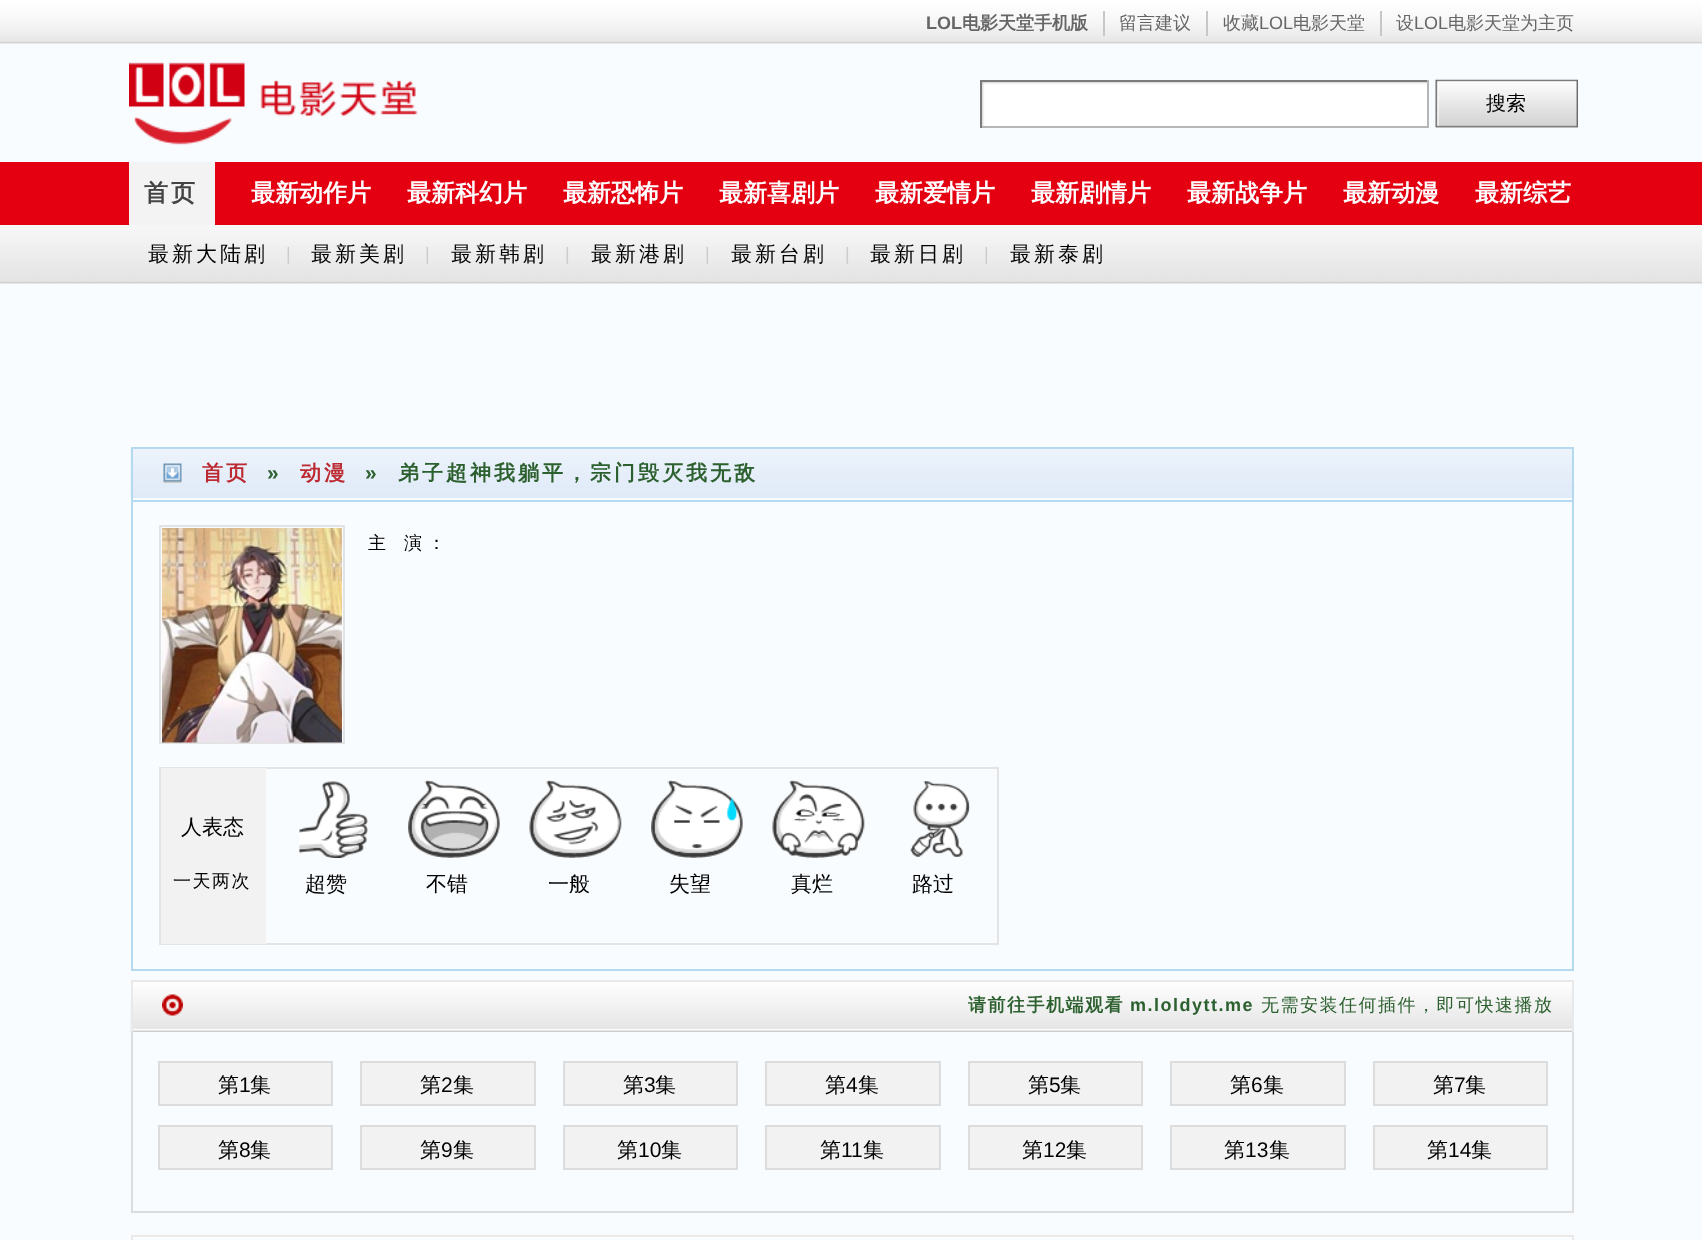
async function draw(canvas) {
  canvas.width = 1702;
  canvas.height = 1240;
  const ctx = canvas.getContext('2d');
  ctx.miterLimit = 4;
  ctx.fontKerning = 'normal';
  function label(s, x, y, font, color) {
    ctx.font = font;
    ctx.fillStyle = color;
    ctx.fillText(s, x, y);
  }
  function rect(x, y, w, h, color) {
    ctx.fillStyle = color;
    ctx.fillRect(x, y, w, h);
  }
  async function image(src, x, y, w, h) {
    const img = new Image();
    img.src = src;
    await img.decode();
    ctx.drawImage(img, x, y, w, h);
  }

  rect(0, 0, 1702, 1240, '#f9fcff');
  await image('assets/img1.png', 0, 0, 1702, 44);
  rect(1103, 11, 2, 25, '#c7c7c7');
  label('LOL', 926, 29, 'bold 18px Liberation Sans', '#666');
  label('电影天堂手机版', 962, 29, 'bold 18px WenQuanYi Zen Hei', '#666');
  rect(1206, 11, 2, 25, '#c7c7c7');
  label('留言建议', 1119, 29, '500 18px WenQuanYi Zen Hei', '#666');
  rect(1380, 11, 2, 25, '#c7c7c7');
  label('收藏', 1223, 29, '500 18px WenQuanYi Zen Hei', '#666');
  label('LOL', 1259, 29, '18px Liberation Sans', '#666');
  label('电影天堂', 1293, 29, '500 18px WenQuanYi Zen Hei', '#666');
  label('设', 1396, 29, '500 18px WenQuanYi Zen Hei', '#666');
  label('LOL', 1414, 29, '18px Liberation Sans', '#666');
  label('电影天堂为主页', 1448, 29, '500 18px WenQuanYi Zen Hei', '#666');
  await image('assets/img2.png', 129, 62, 289, 83);
  await image('assets/img3.png', 982, 82, 445, 44);
  rect(980, 80, 448, 2, '#7b7b7b');
  rect(1427, 80, 2, 48, '#b6b6b6');
  rect(980, 126, 448, 2, '#b6b6b6');
  rect(980, 80, 2, 48, '#7b7b7b');
  rect(1436, 127, 142, 1, '#ddd');
  await image('assets/img4.png', 1435, 79, 143, 49);
  label('搜索', 1486, 110, '500 20px WenQuanYi Zen Hei', '#000');
  rect(0, 162, 1702, 63, '#e40011');
  rect(129, 162, 86, 63, '#f3f3f3');
  ctx.letterSpacing = '3px';
  label('首页', 144, 201, 'bold 24px WenQuanYi Zen Hei', '#444');
  ctx.letterSpacing = '0px';
  label('最新动作片', 251, 201, 'bold 24px WenQuanYi Zen Hei', '#fff');
  label('最新科幻片', 407, 201, 'bold 24px WenQuanYi Zen Hei', '#fff');
  label('最新恐怖片', 563, 201, 'bold 24px WenQuanYi Zen Hei', '#fff');
  label('最新喜剧片', 719, 201, 'bold 24px WenQuanYi Zen Hei', '#fff');
  label('最新爱情片', 875, 201, 'bold 24px WenQuanYi Zen Hei', '#fff');
  label('最新剧情片', 1031, 201, 'bold 24px WenQuanYi Zen Hei', '#fff');
  label('最新战争片', 1187, 201, 'bold 24px WenQuanYi Zen Hei', '#fff');
  label('最新动漫', 1343, 201, 'bold 24px WenQuanYi Zen Hei', '#fff');
  label('最新综艺', 1475, 201, 'bold 24px WenQuanYi Zen Hei', '#fff');
  await image('assets/img5.png', 0, 225, 1702, 59);
  ctx.letterSpacing = '3px';
  label('最新大陆剧', 148, 261, '500 21px WenQuanYi Zen Hei', '#000');
  label('|', 286, 260, '18px Liberation Sans', '#ccc');
  label('最新美剧', 311, 261, '500 21px WenQuanYi Zen Hei', '#000');
  label('|', 425, 260, '18px Liberation Sans', '#ccc');
  label('最新韩剧', 451, 261, '500 21px WenQuanYi Zen Hei', '#000');
  label('|', 565, 260, '18px Liberation Sans', '#ccc');
  label('最新港剧', 591, 261, '500 21px WenQuanYi Zen Hei', '#000');
  label('|', 705, 260, '18px Liberation Sans', '#ccc');
  label('最新台剧', 731, 261, '500 21px WenQuanYi Zen Hei', '#000');
  label('|', 845, 260, '18px Liberation Sans', '#ccc');
  label('最新日剧', 870, 261, '500 21px WenQuanYi Zen Hei', '#000');
  label('|', 984, 260, '18px Liberation Sans', '#ccc');
  label('最新泰剧', 1010, 261, '500 21px WenQuanYi Zen Hei', '#000');
  await image('assets/img6.png', 130, 448, 1442, 50);
  ctx.strokeStyle = '#b5d9ee';
  ctx.lineWidth = 2;
  ctx.strokeRect(132, 448, 1441, 522);
  await image('assets/img7.png', 163, 463, 19, 20);
  rect(132, 500, 1440, 2, '#b5d9ee');
  label('首页', 202, 480, 'bold 21px WenQuanYi Zen Hei', '#bc2931');
  label('»', 267, 480, 'bold 21px Liberation Sans', '#2c602f');
  label('动漫', 300, 480, 'bold 21px WenQuanYi Zen Hei', '#bc2931');
  label('»', 365, 480, 'bold 21px Liberation Sans', '#2c602f');
  label('弟子超神我躺平，宗门毁灭我无敌', 398, 480, 'bold 21px WenQuanYi Zen Hei', '#2c602f');
  ctx.strokeStyle = '#e3e3e3';
  ctx.strokeRect(160, 526, 184, 217);
  await image('assets/img8.png', 162, 528, 180, 215);
  ctx.letterSpacing = '0px';
  label('主　演 ：', 368, 549, '500 18px WenQuanYi Zen Hei', '#000');
  ctx.strokeStyle = '#e4e4e4';
  ctx.strokeRect(160, 768, 838, 176);
  rect(161, 768, 105, 176, '#f2f2f2');
  label('人表态', 181, 834, '500 21px WenQuanYi Zen Hei', '#000');
  ctx.letterSpacing = '1.5px';
  label('一天两次', 173, 887, '500 18px WenQuanYi Zen Hei', '#000');
  await image('assets/img9.png', 298, 781, 70, 77);
  ctx.letterSpacing = '0px';
  label('超赞', 305, 891, '500 21px WenQuanYi Zen Hei', '#000');
  await image('assets/img10.png', 408, 780, 92, 78);
  label('不错', 426, 891, '500 21px WenQuanYi Zen Hei', '#000');
  await image('assets/img11.png', 529, 780, 93, 78);
  label('一般', 548, 891, '500 21px WenQuanYi Zen Hei', '#000');
  await image('assets/img12.png', 651, 780, 92, 78);
  label('失望', 669, 891, '500 21px WenQuanYi Zen Hei', '#000');
  await image('assets/img13.png', 772, 780, 93, 78);
  label('真烂', 791, 891, '500 21px WenQuanYi Zen Hei', '#000');
  await image('assets/img14.png', 910, 781, 61, 76);
  label('路过', 912, 891, '500 21px WenQuanYi Zen Hei', '#000');
  await image('assets/img15.png', 130, 981, 1442, 51);
  rect(131, 980, 1443, 2, '#e9e9e9');
  rect(1572, 980, 2, 52, '#e9e9e9');
  rect(131, 980, 2, 52, '#e9e9e9');
  await image('assets/img16.png', 162, 994, 21, 22);
  ctx.letterSpacing = '1.5px';
  label('请前往手机端观看', 968, 1011, 'bold 18px WenQuanYi Zen Hei', '#2c602f');
  label('m.loldytt.me', 1130, 1011, 'bold 18px Liberation Sans', '#2c602f');
  label('无需安装任何插件，即可快速播放', 1261, 1011, '500 18px WenQuanYi Zen Hei', '#2c602f');
  rect(1572, 1032, 2, 180, '#dcdcdc');
  rect(131, 1211, 1443, 2, '#dcdcdc');
  rect(131, 1032, 2, 180, '#dcdcdc');
  ctx.fillStyle = '#f2f2f2';
  ctx.beginPath();
  ctx.rect(159, 1062, 173, 43);
  ctx.fill();
  ctx.strokeStyle = '#dcdcdc';
  ctx.stroke();
  ctx.letterSpacing = '0px';
  label('第', 218, 1092, '500 21px WenQuanYi Zen Hei', '#000');
  label('1', 239, 1092, '21px Liberation Sans', '#000');
  label('集', 250, 1092, '500 21px WenQuanYi Zen Hei', '#000');
  ctx.fillStyle = '#f2f2f2';
  ctx.beginPath();
  ctx.rect(361, 1062, 174, 43);
  ctx.fill();
  ctx.stroke();
  label('第', 420, 1092, '500 21px WenQuanYi Zen Hei', '#000');
  label('2', 441, 1092, '21px Liberation Sans', '#000');
  label('集', 453, 1092, '500 21px WenQuanYi Zen Hei', '#000');
  ctx.fillStyle = '#f2f2f2';
  ctx.beginPath();
  ctx.rect(564, 1062, 173, 43);
  ctx.fill();
  ctx.stroke();
  label('第', 623, 1092, '500 21px WenQuanYi Zen Hei', '#000');
  label('3', 644, 1092, '21px Liberation Sans', '#000');
  label('集', 655, 1092, '500 21px WenQuanYi Zen Hei', '#000');
  ctx.fillStyle = '#f2f2f2';
  ctx.beginPath();
  ctx.rect(766, 1062, 174, 43);
  ctx.fill();
  ctx.stroke();
  label('第', 825, 1092, '500 21px WenQuanYi Zen Hei', '#000');
  label('4', 846, 1092, '21px Liberation Sans', '#000');
  label('集', 858, 1092, '500 21px WenQuanYi Zen Hei', '#000');
  ctx.fillStyle = '#f2f2f2';
  ctx.beginPath();
  ctx.rect(969, 1062, 173, 43);
  ctx.fill();
  ctx.stroke();
  label('第', 1028, 1092, '500 21px WenQuanYi Zen Hei', '#000');
  label('5', 1049, 1092, '21px Liberation Sans', '#000');
  label('集', 1060, 1092, '500 21px WenQuanYi Zen Hei', '#000');
  ctx.fillStyle = '#f2f2f2';
  ctx.beginPath();
  ctx.rect(1171, 1062, 174, 43);
  ctx.fill();
  ctx.stroke();
  label('第', 1230, 1092, '500 21px WenQuanYi Zen Hei', '#000');
  label('6', 1251, 1092, '21px Liberation Sans', '#000');
  label('集', 1263, 1092, '500 21px WenQuanYi Zen Hei', '#000');
  ctx.fillStyle = '#f2f2f2';
  ctx.beginPath();
  ctx.rect(1374, 1062, 173, 43);
  ctx.fill();
  ctx.stroke();
  label('第', 1433, 1092, '500 21px WenQuanYi Zen Hei', '#000');
  label('7', 1454, 1092, '21px Liberation Sans', '#000');
  label('集', 1465, 1092, '500 21px WenQuanYi Zen Hei', '#000');
  ctx.fillStyle = '#f2f2f2';
  ctx.beginPath();
  ctx.rect(159, 1126, 173, 43);
  ctx.fill();
  ctx.stroke();
  label('第', 218, 1157, '500 21px WenQuanYi Zen Hei', '#000');
  label('8', 239, 1157, '21px Liberation Sans', '#000');
  label('集', 250, 1157, '500 21px WenQuanYi Zen Hei', '#000');
  ctx.fillStyle = '#f2f2f2';
  ctx.beginPath();
  ctx.rect(361, 1126, 174, 43);
  ctx.fill();
  ctx.stroke();
  label('第', 420, 1157, '500 21px WenQuanYi Zen Hei', '#000');
  label('9', 441, 1157, '21px Liberation Sans', '#000');
  label('集', 453, 1157, '500 21px WenQuanYi Zen Hei', '#000');
  ctx.fillStyle = '#f2f2f2';
  ctx.beginPath();
  ctx.rect(564, 1126, 173, 43);
  ctx.fill();
  ctx.stroke();
  label('第', 617, 1157, '500 21px WenQuanYi Zen Hei', '#000');
  label('10', 638, 1157, '21px Liberation Sans', '#000');
  label('集', 661, 1157, '500 21px WenQuanYi Zen Hei', '#000');
  ctx.fillStyle = '#f2f2f2';
  ctx.beginPath();
  ctx.rect(766, 1126, 174, 43);
  ctx.fill();
  ctx.stroke();
  label('第', 820, 1157, '500 21px WenQuanYi Zen Hei', '#000');
  label('11', 841, 1157, '21px Liberation Sans', '#000');
  label('集', 863, 1157, '500 21px WenQuanYi Zen Hei', '#000');
  ctx.fillStyle = '#f2f2f2';
  ctx.beginPath();
  ctx.rect(969, 1126, 173, 43);
  ctx.fill();
  ctx.stroke();
  label('第', 1022, 1157, '500 21px WenQuanYi Zen Hei', '#000');
  label('12', 1043, 1157, '21px Liberation Sans', '#000');
  label('集', 1066, 1157, '500 21px WenQuanYi Zen Hei', '#000');
  ctx.fillStyle = '#f2f2f2';
  ctx.beginPath();
  ctx.rect(1171, 1126, 174, 43);
  ctx.fill();
  ctx.stroke();
  label('第', 1224, 1157, '500 21px WenQuanYi Zen Hei', '#000');
  label('13', 1245, 1157, '21px Liberation Sans', '#000');
  label('集', 1269, 1157, '500 21px WenQuanYi Zen Hei', '#000');
  ctx.fillStyle = '#f2f2f2';
  ctx.beginPath();
  ctx.rect(1374, 1126, 173, 43);
  ctx.fill();
  ctx.stroke();
  label('第', 1427, 1157, '500 21px WenQuanYi Zen Hei', '#000');
  label('14', 1448, 1157, '21px Liberation Sans', '#000');
  label('集', 1471, 1157, '500 21px WenQuanYi Zen Hei', '#000');
  rect(131, 1237, 1442, 1, '#fff');
  rect(131, 1235, 1443, 2, '#e9e9e9');
  rect(1572, 1235, 2, 5, '#e9e9e9');
  rect(131, 1235, 2, 5, '#e9e9e9');
}

draw(document.querySelector('canvas'));
